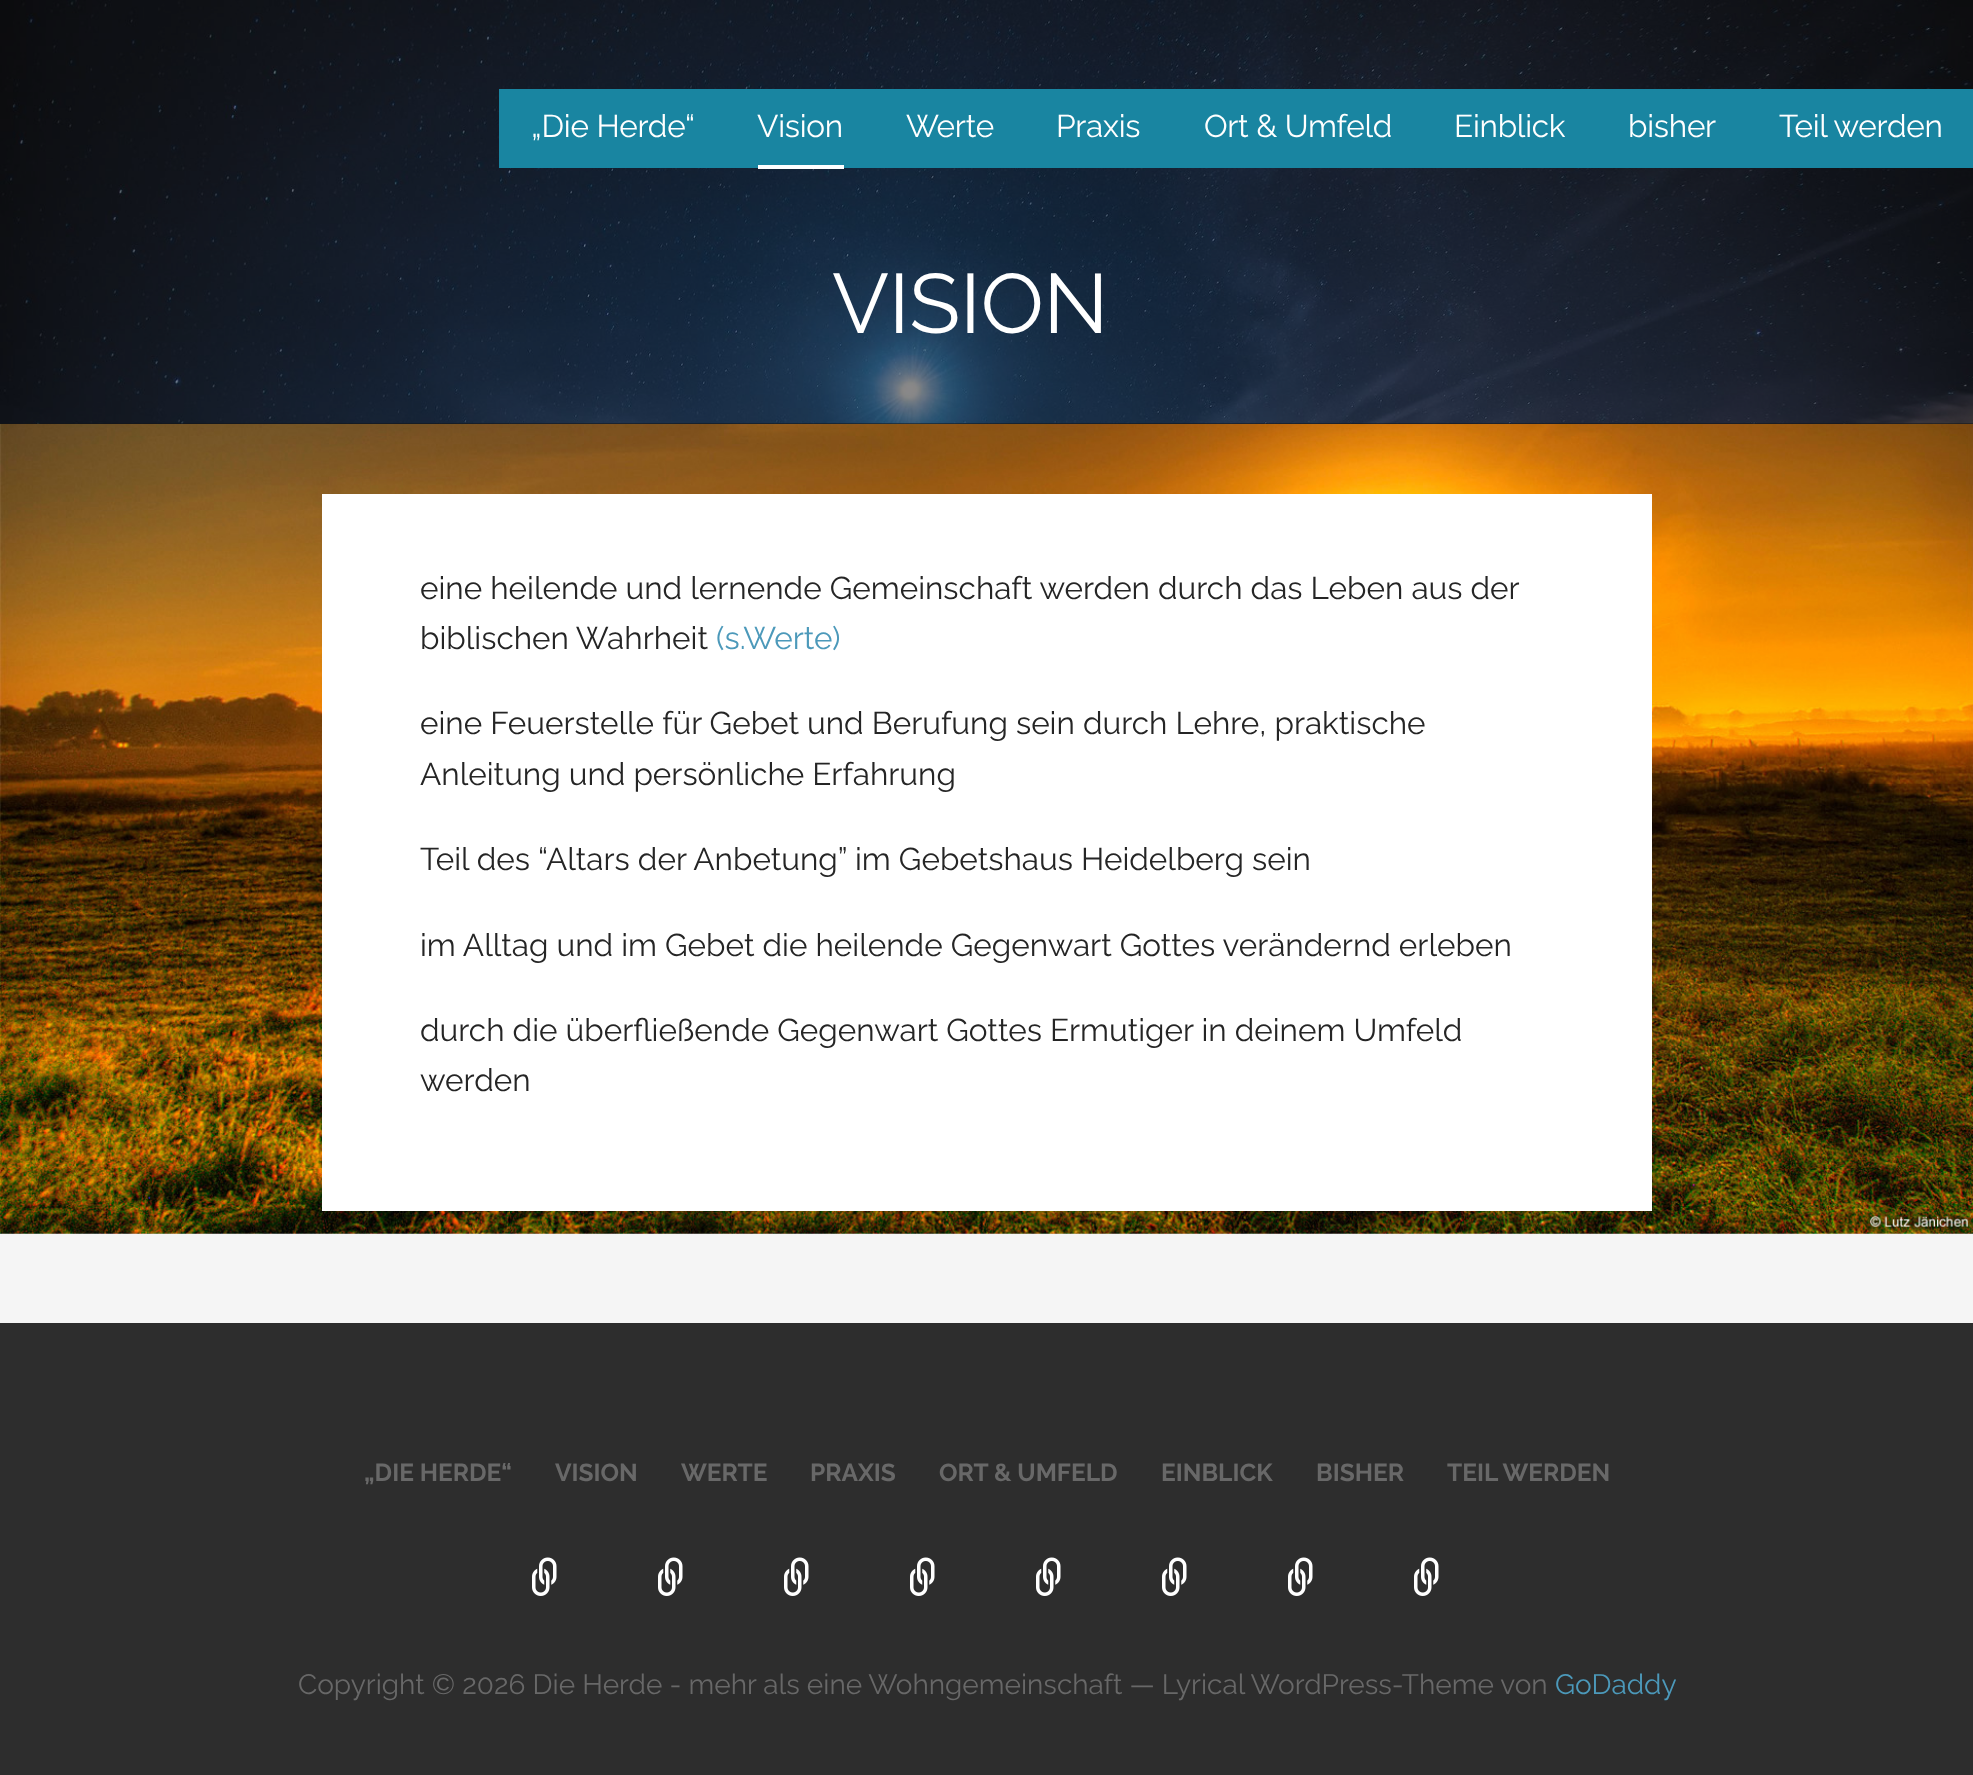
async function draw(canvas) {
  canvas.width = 1973;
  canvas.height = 1775;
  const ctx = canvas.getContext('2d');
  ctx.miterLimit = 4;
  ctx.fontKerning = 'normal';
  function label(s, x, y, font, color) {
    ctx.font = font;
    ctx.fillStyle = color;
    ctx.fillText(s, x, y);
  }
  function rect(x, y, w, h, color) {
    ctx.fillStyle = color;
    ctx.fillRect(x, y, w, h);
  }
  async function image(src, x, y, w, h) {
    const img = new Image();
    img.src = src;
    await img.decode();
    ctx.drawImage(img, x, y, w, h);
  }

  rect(0, 0, 1973, 1775, '#f5f5f5');
  await image('assets/img1.png', 0, 424, 1973, 810);
  rect(0, 423, 1973, 1, '#141414');
  await image('assets/img2.png', 0, 0, 1973, 424);
  rect(0, 0, 1973, 424, '#14141480');
  rect(499, 89, 1474, 79, '#1985a1');
  ctx.letterSpacing = '-0.25px';
  label('„Die Herde“', 531, 137, '31.5px Raleway', '#fff');
  rect(758, 165, 86, 4, '#fff');
  label('Vision', 757, 137, '31.5px Raleway', '#fff');
  label('Werte', 906, 137, '31.5px Raleway', '#fff');
  label('Praxis', 1056, 137, '31.5px Raleway', '#fff');
  label('Ort & Umfeld', 1204, 137, '31.5px Raleway', '#fff');
  label('Einblick', 1454, 137, '31.5px Raleway', '#fff');
  label('bisher', 1628, 137, '31.5px Raleway', '#fff');
  label('Teil werden', 1779, 137, '31.5px Raleway', '#fff');
  label('VISION', 832, 333, '84px Raleway', '#fff');
  rect(322, 494, 1330, 717, '#fff');
  ctx.letterSpacing = '0px';
  label('eine heilende und lernende Gemeinschaft werden durch das Leben aus der', 420, 599, '31.5px Raleway', '#252525');
  label('biblischen Wahrheit', 420, 649, '31.5px Raleway', '#252525');
  label('(s.Werte)', 716, 649, '31.5px Raleway', '#4c99ba');
  label('eine Feuerstelle für Gebet und Berufung sein durch Lehre, praktische', 420, 734, '31.5px Raleway', '#252525');
  label('Anleitung und persönliche Erfahrung', 420, 785, '31.5px Raleway', '#252525');
  label('Teil des “Altars der Anbetung” im Gebetshaus Heidelberg sein', 420, 870, '31.5px Raleway', '#252525');
  label('im Alltag und im Gebet die heilende Gegenwart Gottes verändernd erleben', 420, 956, '31.5px Raleway', '#252525');
  label('durch die überfließende Gegenwart Gottes Ermutiger in deinem Umfeld', 420, 1041, '31.5px Raleway', '#252525');
  label('werden', 420, 1091, '31.5px Raleway', '#252525');
  rect(0, 1323, 1973, 452, '#2d2d2d');
  label('„DIE HERDE“', 364, 1481, 'bold 24.5px Raleway', '#686868');
  label('VISION', 555, 1481, 'bold 24.5px Raleway', '#686868');
  label('WERTE', 681, 1481, 'bold 24.5px Raleway', '#686868');
  label('PRAXIS', 810, 1481, 'bold 24.5px Raleway', '#686868');
  label('ORT & UMFELD', 939, 1481, 'bold 24.5px Raleway', '#686868');
  label('EINBLICK', 1161, 1481, 'bold 24.5px Raleway', '#686868');
  label('BISHER', 1316, 1481, 'bold 24.5px Raleway', '#686868');
  label('TEIL WERDEN', 1447, 1481, 'bold 24.5px Raleway', '#686868');
  await image('assets/img3.png', 532, 1557, 25, 39);
  await image('assets/img3.png', 658, 1557, 25, 39);
  await image('assets/img3.png', 784, 1557, 25, 39);
  await image('assets/img3.png', 910, 1557, 25, 39);
  await image('assets/img3.png', 1036, 1557, 25, 39);
  await image('assets/img3.png', 1162, 1557, 25, 39);
  await image('assets/img3.png', 1288, 1557, 25, 39);
  await image('assets/img3.png', 1414, 1557, 25, 39);
  label('Copyright © 2026 Die Herde - mehr als eine Wohngemeinschaft — Lyrical WordPress-Theme von', 298, 1694, '28px Raleway', '#686868');
  label('GoDaddy', 1555, 1694, '28px Raleway', '#4c99ba');
}

draw(document.querySelector('canvas'));
